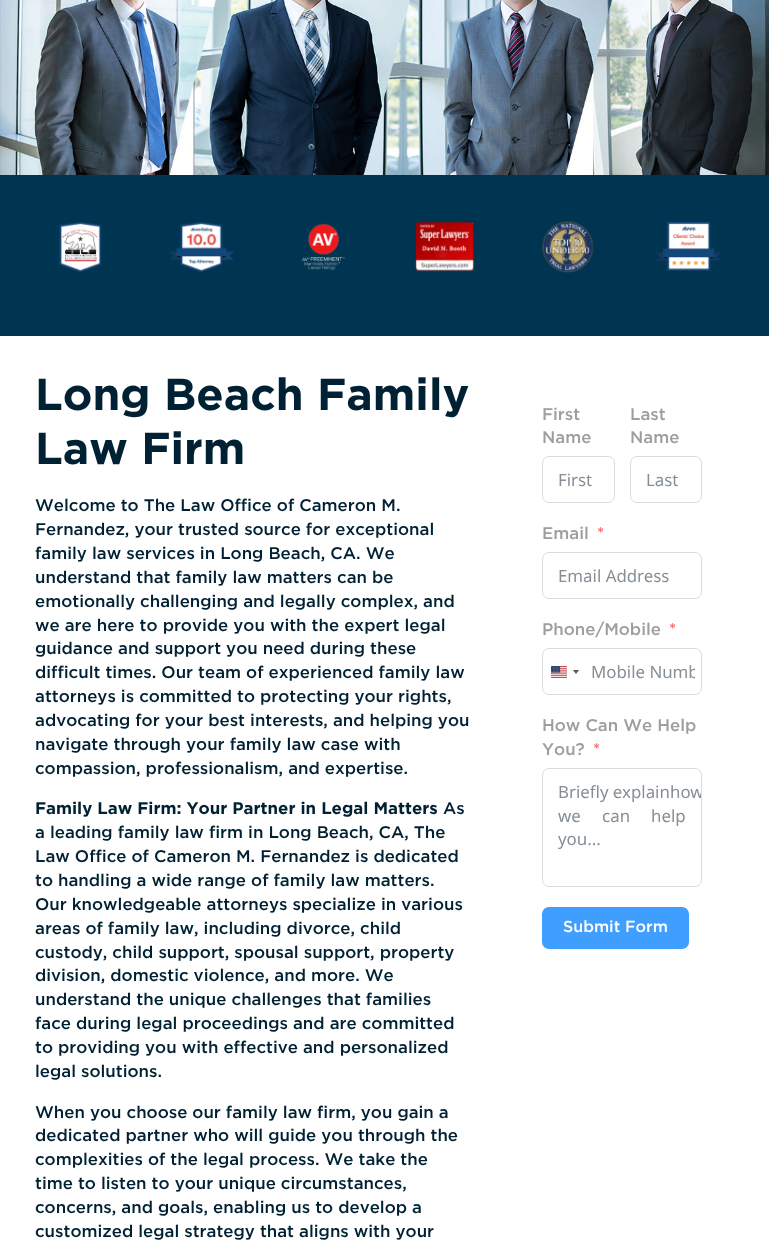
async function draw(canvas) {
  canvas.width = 769;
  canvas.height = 1247;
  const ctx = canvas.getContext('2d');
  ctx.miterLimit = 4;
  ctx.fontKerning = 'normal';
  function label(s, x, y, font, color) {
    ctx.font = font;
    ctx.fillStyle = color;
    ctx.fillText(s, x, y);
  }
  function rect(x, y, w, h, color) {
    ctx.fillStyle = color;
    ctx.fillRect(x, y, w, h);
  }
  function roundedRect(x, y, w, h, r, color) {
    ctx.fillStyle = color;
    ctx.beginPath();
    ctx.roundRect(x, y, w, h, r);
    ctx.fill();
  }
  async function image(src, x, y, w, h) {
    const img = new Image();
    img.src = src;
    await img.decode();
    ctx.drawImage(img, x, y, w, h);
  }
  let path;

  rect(0, 0, 769, 1247, '#fff');
  await image('assets/img1.png', 0, 0, 769, 175);
  rect(0, 175, 769, 161, '#003552');
  await image('assets/img2.png', 59, 222, 43, 51);
  await image('assets/img3.png', 169, 222, 65, 51);
  await image('assets/img4.png', 302, 223, 43, 48);
  await image('assets/img5.png', 415, 222, 60, 50);
  await image('assets/img6.png', 542, 221, 52, 52);
  await image('assets/img7.png', 656, 221, 66, 50);
  label('Long Beach Family', 35, 410, 'bold 44.75px Gotham', '#002133');
  label('Law Firm', 35, 464, 'bold 44.75px Gotham', '#002133');
  label('Welcome to The Law Office of Cameron M.', 35, 511, '500 16.85px Gotham', '#002133');
  label('Fernandez, your trusted source for exceptional', 35, 535, '500 16.85px Gotham', '#002133');
  label('family law services in Long Beach, CA. We', 35, 559, '500 16.85px Gotham', '#002133');
  label('understand that family law matters can be', 35, 583, '500 16.85px Gotham', '#002133');
  label('emotionally challenging and legally complex, and', 35, 607, '500 16.85px Gotham', '#002133');
  label('we are here to provide you with the expert legal', 35, 631, '500 16.85px Gotham', '#002133');
  label('guidance and support you need during these', 35, 654, '500 16.85px Gotham', '#002133');
  label('difficult times. Our team of experienced family law', 35, 678, '500 16.85px Gotham', '#002133');
  label('attorneys is committed to protecting your rights,', 35, 702, '500 16.85px Gotham', '#002133');
  label('advocating for your best interests, and helping you', 35, 726, '500 16.85px Gotham', '#002133');
  label('navigate through your family law case with', 35, 750, '500 16.85px Gotham', '#002133');
  label('compassion, professionalism, and expertise.', 35, 774, '500 16.85px Gotham', '#002133');
  label('Family Law Firm: Your Partner in Legal Matters', 35, 814, 'bold 16.85px Gotham', '#002133');
  label('As', 443, 814, '500 16.85px Gotham', '#002133');
  label('a leading family law firm in Long Beach, CA, The', 35, 838, '500 16.85px Gotham', '#002133');
  label('Law Office of Cameron M. Fernandez is dedicated', 35, 862, '500 16.85px Gotham', '#002133');
  label('to handling a wide range of family law matters.', 35, 886, '500 16.85px Gotham', '#002133');
  label('Our knowledgeable attorneys specialize in various', 35, 910, '500 16.85px Gotham', '#002133');
  label('areas of family law, including divorce, child', 35, 934, '500 16.85px Gotham', '#002133');
  label('custody, child support, spousal support, property', 35, 958, '500 16.85px Gotham', '#002133');
  label('division, domestic violence, and more. We', 35, 981, '500 16.85px Gotham', '#002133');
  label('understand the unique challenges that families', 35, 1005, '500 16.85px Gotham', '#002133');
  label('face during legal proceedings and are committed', 35, 1029, '500 16.85px Gotham', '#002133');
  label('to providing you with effective and personalized', 35, 1053, '500 16.85px Gotham', '#002133');
  label('legal solutions.', 35, 1077, '500 16.85px Gotham', '#002133');
  label('When you choose our family law firm, you gain a', 35, 1118, '500 16.85px Gotham', '#002133');
  label('dedicated partner who will guide you through the', 35, 1141, '500 16.85px Gotham', '#002133');
  label('complexities of the legal process. We take the', 35, 1165, '500 16.85px Gotham', '#002133');
  label('time to listen to your unique circumstances,', 35, 1189, '500 16.85px Gotham', '#002133');
  label('concerns, and goals, enabling us to develop a', 35, 1213, '500 16.85px Gotham', '#002133');
  label('customized legal strategy that aligns with your', 35, 1237, '500 16.85px Gotham', '#002133');
  label('First', 542, 420, '500 16.85px Gotham', '#9e9e9e');
  label('Name', 542, 443, '500 16.85px Gotham', '#9e9e9e');
  ctx.beginPath();
  ctx.roundRect(542.5, 456.5, 72, 46, 6.5);
  ctx.strokeStyle = '#dadbdd';
  ctx.stroke();
  label('First', 558, 486, '16.85px Noto Sans', '#868e96');
  label('Last', 630, 420, '500 16.85px Gotham', '#9e9e9e');
  label('Name', 630, 443, '500 16.85px Gotham', '#9e9e9e');
  ctx.beginPath();
  ctx.roundRect(630.5, 456.5, 71, 46, 6.5);
  ctx.stroke();
  label('Last', 646, 486, '16.85px Noto Sans', '#868e96');
  label('Email', 542, 539, '500 16.85px Gotham', '#9e9e9e');
  label('*', 597, 539, '500 16.85px Gotham', '#f56c6c');
  ctx.beginPath();
  ctx.roundRect(542.5, 552.5, 159, 46, 6.5);
  ctx.stroke();
  label('Email Address', 558, 582, '16.85px Noto Sans', '#868e96');
  label('Phone/Mobile', 542, 635, '500 16.85px Gotham', '#9e9e9e');
  label('*', 669, 635, '500 16.85px Gotham', '#f56c6c');
  ctx.beginPath();
  ctx.roundRect(542.5, 648.5, 159, 46, 6.5);
  ctx.stroke();
  ctx.fillStyle = '#888';
  ctx.filter = 'blur(0.5px)';
  ctx.beginPath();
  ctx.roundRect(551, 666, 16, 12, 1);
  ctx.fill();
  ctx.filter = 'none';
  await image('assets/img8.png', 551, 666, 16, 12);
  ctx.fillStyle = '#555';
  path = new Path2D('M573 670H579L576 674Z');
  ctx.fill(path);
  ctx.save();
  ctx.beginPath();
  ctx.rect(591, 660, 104, 23);
  ctx.clip();
  label('Mobile Numb', 591, 678, '16.85px Noto Sans', '#868e96');
  ctx.restore();
  label('How Can We Help', 542, 731, '500 16.85px Gotham', '#9e9e9e');
  label('You?', 542, 755, '500 16.85px Gotham', '#9e9e9e');
  label('*', 593, 755, '500 16.85px Gotham', '#f56c6c');
  ctx.beginPath();
  ctx.roundRect(542.5, 768.5, 159, 118, 6.5);
  ctx.stroke();
  label('Briefly explain', 558, 798, '16.85px Noto Sans', '#868e96');
  ctx.save();
  ctx.beginPath();
  ctx.roundRect(543, 769, 158, 117, 6);
  ctx.clip();
  label('how', 670, 798, '16.85px Noto Sans', '#868e96');
  ctx.restore();
  ctx.wordSpacing = '17px';
  label('we can', 558, 822, '16.85px Noto Sans', '#868e96');
  ctx.wordSpacing = '0px';
  label('help', 651, 822, '16.85px Noto Sans', '#868e96');
  label('you...', 558, 845, '16.85px Noto Sans', '#868e96');
  roundedRect(542, 907, 147, 42, 7, '#409eff');
  label('Submit Form', 563, 932, '500 16px Gotham', '#fff');
}

draw(document.querySelector('canvas'));
